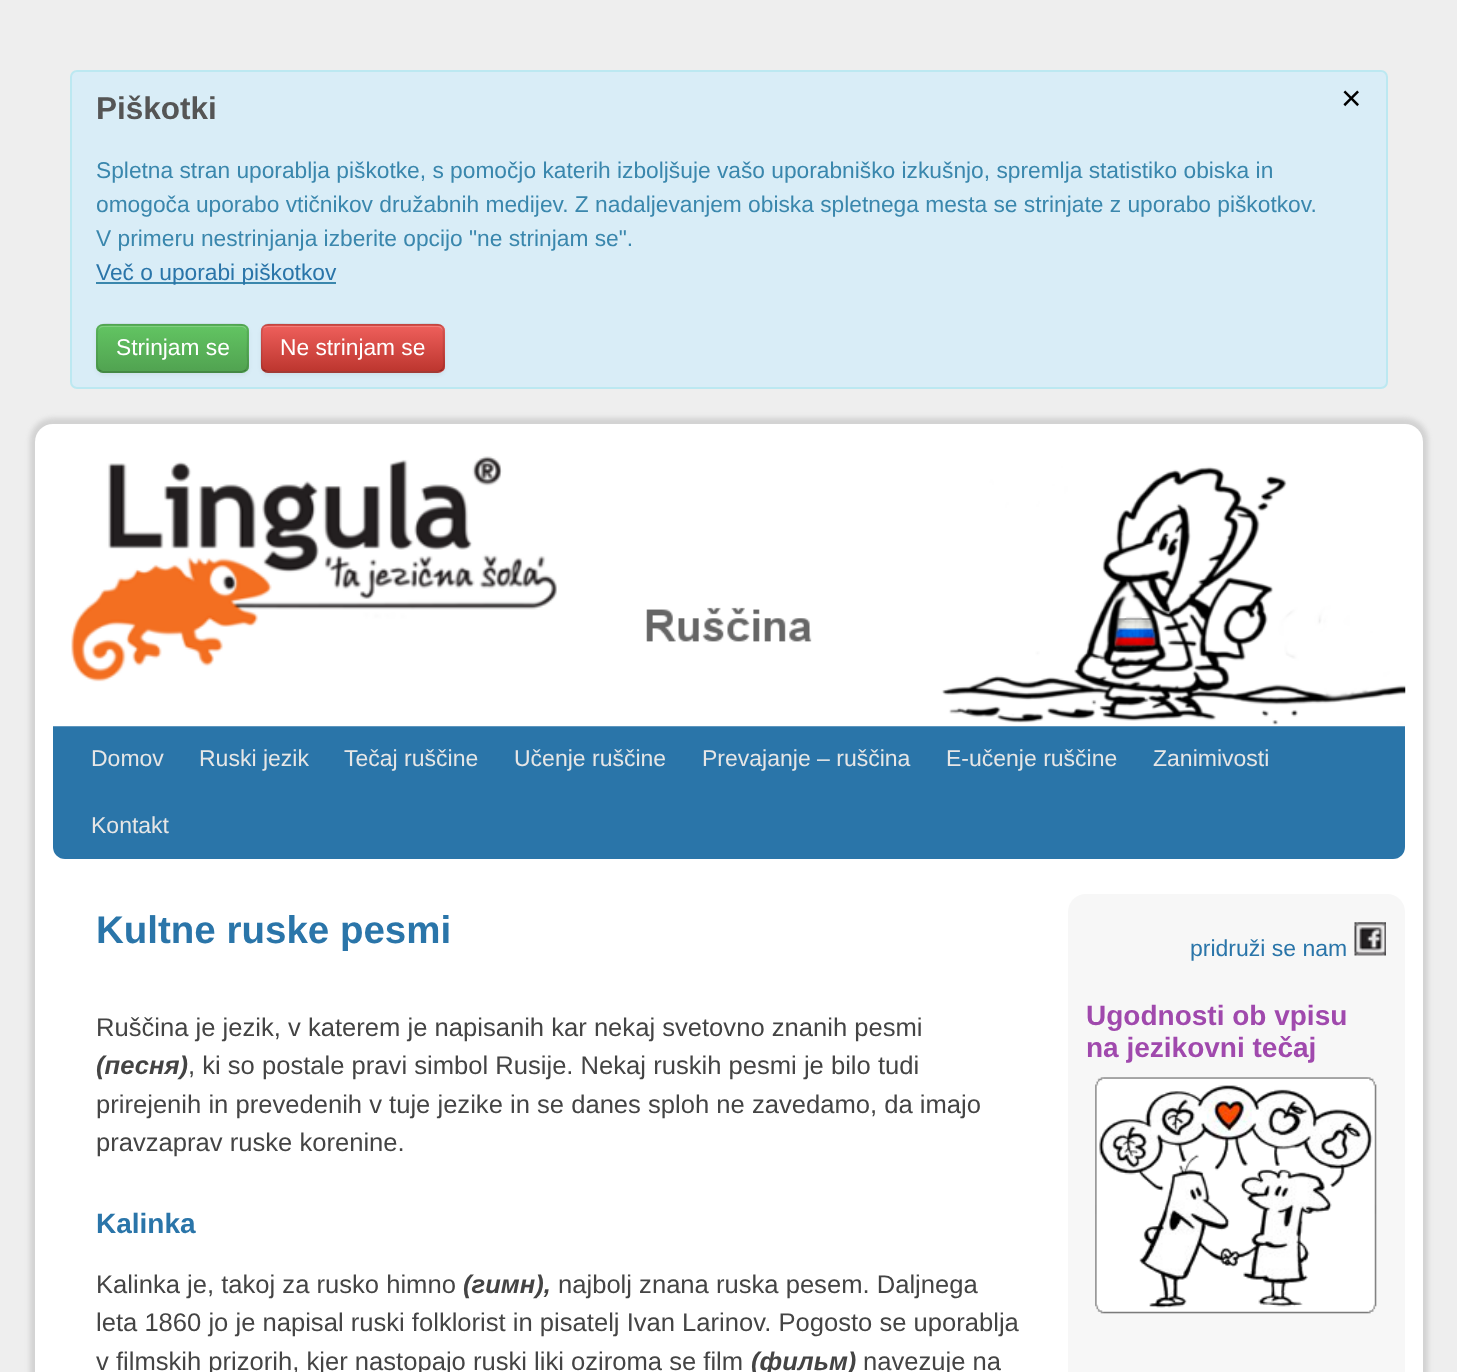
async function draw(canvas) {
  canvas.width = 1457;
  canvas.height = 1372;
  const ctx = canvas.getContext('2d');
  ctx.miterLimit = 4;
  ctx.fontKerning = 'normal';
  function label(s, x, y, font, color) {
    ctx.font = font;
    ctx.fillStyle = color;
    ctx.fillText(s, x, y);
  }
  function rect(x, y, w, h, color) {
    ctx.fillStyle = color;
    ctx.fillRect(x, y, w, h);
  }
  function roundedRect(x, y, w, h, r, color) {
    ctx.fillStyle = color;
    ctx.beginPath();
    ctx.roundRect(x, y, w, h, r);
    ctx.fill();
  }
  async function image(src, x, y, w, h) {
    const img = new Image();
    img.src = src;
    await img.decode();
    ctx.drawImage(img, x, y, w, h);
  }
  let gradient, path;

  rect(0, 0, 1457, 1372, '#eee');
  ctx.fillStyle = '#d9edf7';
  ctx.beginPath();
  ctx.roundRect(71, 71, 1316, 317, 6);
  ctx.fill();
  ctx.strokeStyle = '#bce8f1';
  ctx.lineWidth = 2;
  ctx.stroke();
  label('Piškotki', 96, 119, 'bold 31.5px Liberation Sans', '#555');
  label('×', 1341, 110, '35px Liberation Sans', '#000');
  label('Spletna stran uporablja piškotke, s pomočjo katerih izboljšuje vašo uporabniško izkušnjo, spremlja statistiko obiska in', 96, 178, '22.75px Liberation Sans', '#3a87ad');
  label('omogoča uporabo vtičnikov družabnih medijev. Z nadaljevanjem obiska spletnega mesta se strinjate z uporabo piškotkov.', 96, 212, '22.75px Liberation Sans', '#3a87ad');
  label('V primeru nestrinjanja izberite opcijo "ne strinjam se".', 96, 246, '22.75px Liberation Sans', '#3a87ad');
  rect(96, 282, 240, 2, '#3a87ad');
  label('Več o uporabi piškotkov', 96, 280, '22.75px Liberation Sans', '#2a75a9');
  ctx.fillStyle = '#0000000d';
  ctx.filter = 'blur(2px)';
  ctx.beginPath();
  ctx.roundRect(96, 326, 153, 49, 7);
  ctx.fill();
  ctx.filter = 'none';
  roundedRect(96, 324, 153, 49, 7, '#5bb75b');
  ctx.save();
  ctx.beginPath();
  ctx.roundRect(96, 324, 153, 49, 7);
  ctx.clip();
  gradient = ctx.createLinearGradient(172, 326, 172, 371);
  gradient.addColorStop(0, '#62c462');
  gradient.addColorStop(1, '#51a351');
  ctx.fillStyle = gradient;
  ctx.fillRect(96, 326, 153, 45);
  ctx.restore();
  ctx.fillStyle = '#ffffff33';
  path = new Path2D('M103 327H242C244 327 247 330 247 332V331C247 328 245 326 242 326H103C100 326 98 328 98 331V332C98 330 100 327 103 327Z');
  ctx.fill(path);
  path = new Path2D('M246 370C244.5 371 243 372 241.5 372H103C101.5 372 100 371 99 370');
  ctx.strokeStyle = '#00000040';
  ctx.lineWidth = 1.8;
  ctx.stroke(path);
  path = new Path2D('M99 370C96.5 367.5 97 363 97 360V348C97 319.5 94.5 324.5 126.5 324.5H218.5C253.5 324.5 247.5 320.5 247.5 354C247.5 358 249.5 366.5 246 370');
  ctx.strokeStyle = '#0000001a';
  ctx.stroke(path);
  label('Strinjam se', 116, 355, '22.75px Liberation Sans', '#fff');
  ctx.fillStyle = '#0000000d';
  ctx.filter = 'blur(2px)';
  ctx.beginPath();
  ctx.roundRect(261, 326, 184, 49, 7);
  ctx.fill();
  ctx.filter = 'none';
  roundedRect(261, 324, 184, 49, 7, '#da4f49');
  ctx.save();
  ctx.beginPath();
  ctx.roundRect(261, 324, 184, 49, 7);
  ctx.clip();
  gradient = ctx.createLinearGradient(353, 326, 353, 371);
  gradient.addColorStop(0, '#ee5f5b');
  gradient.addColorStop(1, '#bd362f');
  ctx.fillStyle = gradient;
  ctx.fillRect(261, 326, 184, 45);
  ctx.restore();
  ctx.fillStyle = '#ffffff33';
  path = new Path2D('M268 327H438C440 327 443 330 443 332V331C443 328 441 326 438 326H268C266 326 264 327 263 329C264 328 266 327 268 327Z');
  ctx.fill(path);
  path = new Path2D('M442 370C440.5 371 439 372 437.5 372H268C266 372 264.5 371 263.5 370');
  ctx.strokeStyle = '#00000040';
  ctx.stroke(path);
  path = new Path2D('M263.5 370C260 366.5 261.5 358 261.5 354C261.5 318 256.5 324.5 296 324.5H409C449 324.5 443.5 318 443.5 354C443.5 358 445.5 366.5 442 370');
  ctx.strokeStyle = '#0000001a';
  ctx.stroke(path);
  label('Ne strinjam se', 280, 355, '22.75px Liberation Sans', '#fff');
  ctx.fillStyle = '#7f7f7f40';
  ctx.filter = 'blur(2.5px)';
  ctx.beginPath();
  ctx.roundRect(30, 418, 1398, 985, 23);
  ctx.fill();
  ctx.filter = 'none';
  roundedRect(35, 424, 1388, 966, 18, '#fff');
  ctx.fillStyle = '#2a75a9';
  ctx.beginPath();
  ctx.roundRect(53, 726, 1352, 133, [0, 0, 12, 12]);
  ctx.fill();
  await image('assets/img2.png', 53, 466, 1353, 261);
  await image('assets/img1.png', 71, 456, 486, 226);
  label('Domov', 91, 766, '23px Liberation Sans', '#e6e6e6');
  label('Ruski jezik', 199, 766, '23px Liberation Sans', '#e6e6e6');
  label('Tečaj ruščine', 344, 766, '23px Liberation Sans', '#e6e6e6');
  label('Učenje ruščine', 514, 766, '23px Liberation Sans', '#e6e6e6');
  label('Prevajanje – ruščina', 702, 766, '23px Liberation Sans', '#e6e6e6');
  label('E-učenje ruščine', 946, 766, '23px Liberation Sans', '#e6e6e6');
  label('Zanimivosti', 1153, 766, '23px Liberation Sans', '#e6e6e6');
  label('Kontakt', 91, 833, '23px Liberation Sans', '#e6e6e6');
  label('Kultne ruske pesmi', 96, 943, 'bold 38.5px Liberation Sans', '#2a75a9');
  label('Ruščina je jezik, v katerem je napisanih kar nekaj svetovno znanih pesmi', 96, 1036, '25.6px Liberation Sans', '#444');
  label('(песня)', 96, 1074, 'italic bold 25.6px Liberation Sans', '#444');
  label(', ki so postale pravi simbol Rusije. Nekaj ruskih pesmi je bilo tudi', 188, 1074, '25.6px Liberation Sans', '#444');
  label('prirejenih in prevedenih v tuje jezike in se danes sploh ne zavedamo, da imajo', 96, 1113, '25.6px Liberation Sans', '#444');
  label('pravzaprav ruske korenine.', 96, 1151, '25.6px Liberation Sans', '#444');
  label('Kalinka', 96, 1233, 'bold 28px Liberation Sans', '#2a75a9');
  label('Kalinka je, takoj za rusko himno', 96, 1293, '25.6px Liberation Sans', '#444');
  label('(гимн),', 463, 1293, 'italic bold 25.6px Liberation Sans', '#444');
  label('najbolj znana ruska pesem. Daljnega', 558, 1293, '25.6px Liberation Sans', '#444');
  label('leta 1860 jo je napisal ruski folklorist in pisatelj Ivan Larinov. Pogosto se uporablja', 96, 1331, '25.6px Liberation Sans', '#444');
  label('v filmskih prizorih, kjer nastopajo ruski liki oziroma se film', 96, 1370, '25.6px Liberation Sans', '#444');
  label('(фильм)', 751, 1370, 'italic bold 25.6px Liberation Sans', '#444');
  label('navezuje na', 863, 1370, '25.6px Liberation Sans', '#444');
  roundedRect(1068, 894, 337, 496, 18, '#f7f7f7');
  label('pridruži se nam', 1190, 956, '23px Liberation Sans', '#2a75a9');
  await image('assets/img3.png', 1354, 922, 32, 34);
  label('Ugodnosti ob vpisu', 1086, 1025, 'bold 28px Liberation Sans', '#a049ad');
  label('na jezikovni tečaj', 1086, 1057, 'bold 28px Liberation Sans', '#a049ad');
  await image('assets/img4.png', 1095, 1077, 282, 237);
}

draw(document.querySelector('canvas'));
